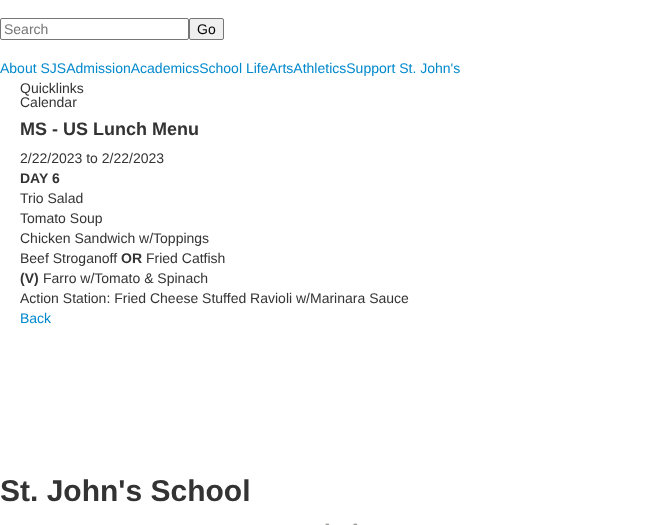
async function draw(canvas) {
  canvas.width = 670;
  canvas.height = 525;
  const ctx = canvas.getContext('2d');
  ctx.miterLimit = 4;
  ctx.fontKerning = 'normal';
  function label(s, x, y, font, color) {
    ctx.font = font;
    ctx.fillStyle = color;
    ctx.fillText(s, x, y);
  }
  function rect(x, y, w, h, color) {
    ctx.fillStyle = color;
    ctx.fillRect(x, y, w, h);
  }

  rect(0, 0, 670, 525, '#fff');
  ctx.beginPath();
  ctx.roundRect(0.5, 18.5, 188, 21, 1.5);
  ctx.strokeStyle = '#767676';
  ctx.stroke();
  label('Search', 4, 34, '14px Liberation Sans', '#757575');
  ctx.fillStyle = '#efefef';
  ctx.beginPath();
  ctx.roundRect(189.5, 18.5, 34, 21, 1.5);
  ctx.fill();
  ctx.stroke();
  label('Go', 197, 34, '14px Liberation Sans', '#000');
  label('About SJSAdmissionAcademicsSchool LifeArtsAthleticsSupport St. John\'s', 0, 73, '14px Liberation Sans', '#08c');
  label('Quicklinks', 20, 93, '14px Liberation Sans', '#333');
  label('Calendar', 20, 107, '14px Liberation Sans', '#333');
  label('MS - US Lunch Menu', 20, 135, 'bold 18px Liberation Sans', '#333');
  label('2/22/2023 to 2/22/2023', 20, 163, '14px Liberation Sans', '#333');
  label('DAY 6', 20, 183, 'bold 14px Liberation Sans', '#333');
  label('Trio Salad', 20, 203, '14px Liberation Sans', '#333');
  label('Tomato Soup', 20, 223, '14px Liberation Sans', '#333');
  label('Chicken Sandwich w/Toppings', 20, 243, '14px Liberation Sans', '#333');
  label('Beef Stroganoff', 20, 263, '14px Liberation Sans', '#333');
  label('OR', 121, 263, 'bold 14px Liberation Sans', '#333');
  label('Fried Catfish', 146, 263, '14px Liberation Sans', '#333');
  label('(V)', 20, 283, 'bold 14px Liberation Sans', '#333');
  label('Farro w/Tomato & Spinach', 43, 283, '14px Liberation Sans', '#333');
  label('Action Station: Fried Cheese Stuffed Ravioli w/Marinara Sauce', 20, 303, '14px Liberation Sans', '#333');
  label('Back', 20, 323, '14px Liberation Sans', '#08c');
  label('St. John\'s School', 0, 501, 'bold 30px Liberation Sans', '#333');
  label('-', 325, 528, '14px Liberation Sans', '#8d8a85');
  label('-', 353, 528, '14px Liberation Sans', '#8d8a85');
}

draw(document.querySelector('canvas'));
